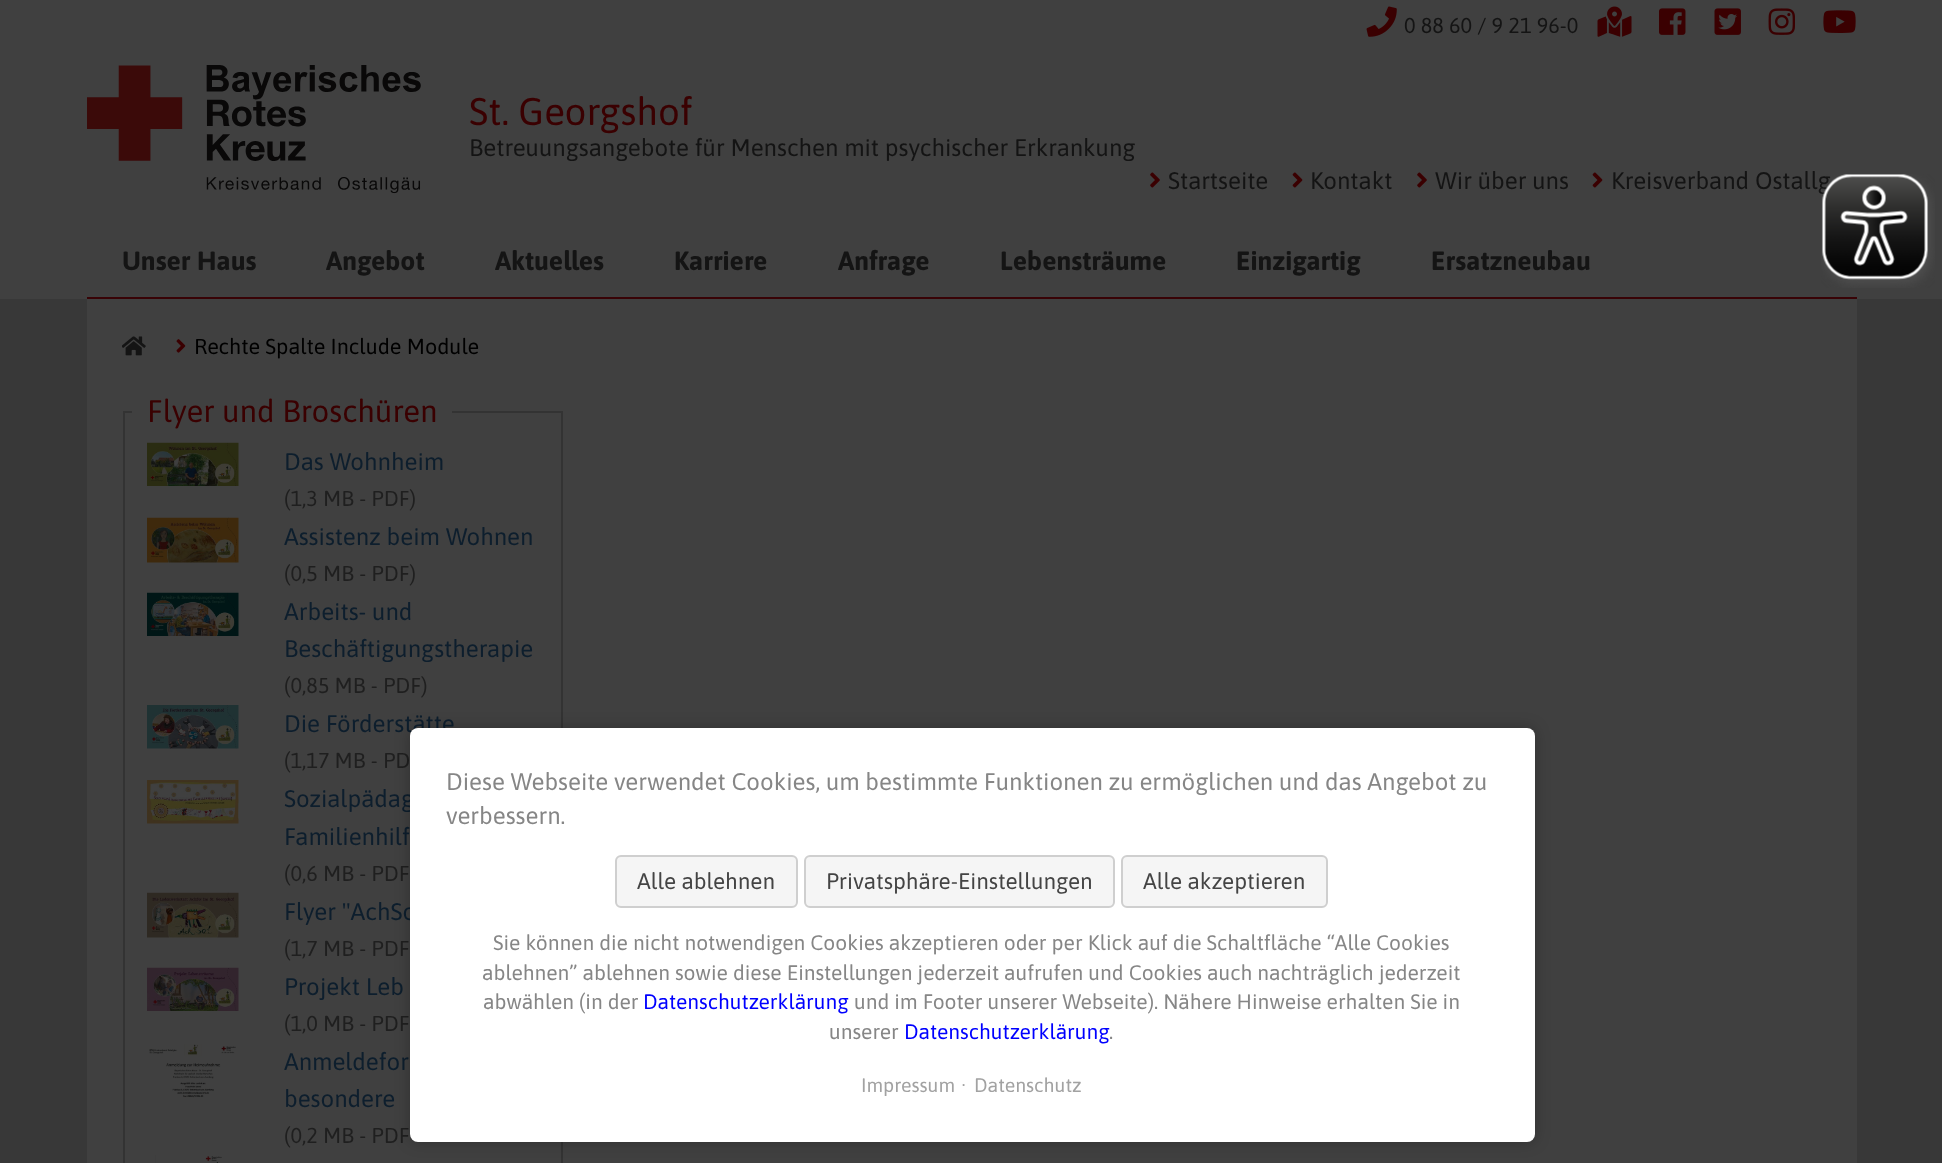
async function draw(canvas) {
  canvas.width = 1942;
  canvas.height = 1163;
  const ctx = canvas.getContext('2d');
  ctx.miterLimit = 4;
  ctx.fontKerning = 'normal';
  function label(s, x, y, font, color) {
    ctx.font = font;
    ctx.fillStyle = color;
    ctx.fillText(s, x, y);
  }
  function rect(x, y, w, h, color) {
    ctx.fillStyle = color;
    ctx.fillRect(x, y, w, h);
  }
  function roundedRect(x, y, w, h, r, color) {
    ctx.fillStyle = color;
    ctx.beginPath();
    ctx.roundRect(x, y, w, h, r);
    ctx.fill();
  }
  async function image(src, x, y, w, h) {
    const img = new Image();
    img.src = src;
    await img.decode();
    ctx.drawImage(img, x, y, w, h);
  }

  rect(0, 0, 1942, 1163, '#404040');
  await image('assets/img1.png', 1366, 6, 31, 31);
  label('0 88 60 / 9 21 96-0', 1404, 33, '21.6px Asap', '#141414');
  await image('assets/img2.png', 1597, 6, 35, 31);
  await image('assets/img3.png', 1659, 8, 27, 27);
  await image('assets/img4.png', 1714, 8, 27, 27);
  await image('assets/img5.png', 1768, 8, 27, 27);
  await image('assets/img6.png', 1823, 10, 33, 23);
  await image('assets/img7.png', 87, 65, 334, 129);
  label('St. Georgshof', 469, 125, '38.5px Asap', '#3a0001');
  label('Betreuungsangebote für Menschen mit psychischer Erkrankung', 469, 156, '24px Asap', '#141414');
  await image('assets/img8.png', 1150, 172, 10, 16);
  label('Startseite', 1168, 189, '24px Asap', '#141414');
  await image('assets/img9.png', 1292, 172, 11, 16);
  label('Kontakt', 1310, 189, '24px Asap', '#141414');
  await image('assets/img8.png', 1417, 172, 10, 16);
  label('Wir über uns', 1435, 189, '24px Asap', '#141414');
  await image('assets/img9.png', 1592, 172, 11, 16);
  label('Kreisverband Ostallg', 1611, 189, '24px Asap', '#141414');
  rect(87, 297, 1770, 2, '#380306');
  label('Unser Haus', 122, 270, 'bold 26.5px Asap', '#141414');
  label('Angebot', 326, 270, 'bold 26.5px Asap', '#141414');
  label('Aktuelles', 495, 270, 'bold 26.5px Asap', '#141414');
  label('Karriere', 674, 270, 'bold 26.5px Asap', '#141414');
  label('Anfrage', 838, 270, 'bold 26.5px Asap', '#141414');
  label('Lebensträume', 1000, 270, 'bold 26.5px Asap', '#141414');
  label('Einzigartig', 1236, 270, 'bold 26.5px Asap', '#141414');
  label('Ersatzneubau', 1431, 270, 'bold 26.5px Asap', '#141414');
  await image('assets/img10.png', 1821, 174, 114, 114);
  rect(0, 299, 1942, 864, '#383838');
  rect(87, 299, 1770, 864, '#404040');
  await image('assets/img11.png', 122, 336, 24, 20);
  await image('assets/img12.png', 176, 339, 10, 14);
  label('Rechte Spalte Include Module', 194, 354, '21.6px Asap', '#000');
  ctx.strokeStyle = '#333';
  ctx.lineWidth = 2;
  ctx.strokeRect(124, 412, 438, 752);
  rect(132, 411, 320, 2, '#404040');
  label('Flyer und Broschüren', 147, 422, '31.25px Asap', '#3a0001');
  await image('assets/img13.png', 147, 442, 92, 44);
  label('Das Wohnheim', 284, 470, '24px Asap', '#0d1e2d');
  label('(1,3 MB - PDF)', 284, 506, '21.6px Asap', '#1f1f1f');
  await image('assets/img14.png', 147, 517, 92, 46);
  label('Assistenz beim Wohnen', 284, 545, '24px Asap', '#0d1e2d');
  label('(0,5 MB - PDF)', 284, 581, '21.6px Asap', '#1f1f1f');
  await image('assets/img15.png', 147, 592, 92, 44);
  label('Arbeits- und', 284, 620, '24px Asap', '#0d1e2d');
  label('Beschäftigungstherapie', 284, 657, '24px Asap', '#0d1e2d');
  label('(0,85 MB - PDF)', 284, 693, '21.6px Asap', '#1f1f1f');
  await image('assets/img16.png', 147, 705, 92, 44);
  label('Die Förderstätte', 284, 732, '24px Asap', '#0d1e2d');
  label('(1,17 MB - PD', 284, 768, '21.6px Asap', '#1f1f1f');
  await image('assets/img17.png', 147, 780, 92, 44);
  label('Sozialpädag', 284, 807, '24px Asap', '#0d1e2d');
  label('Familienhilf', 284, 845, '24px Asap', '#0d1e2d');
  label('(0,6 MB - PDF', 284, 881, '21.6px Asap', '#1f1f1f');
  await image('assets/img18.png', 147, 892, 92, 46);
  label('Flyer "AchSo', 284, 920, '24px Asap', '#0d1e2d');
  label('(1,7 MB - PDF', 284, 956, '21.6px Asap', '#1f1f1f');
  await image('assets/img19.png', 147, 967, 92, 44);
  label('Projekt Leb', 284, 995, '24px Asap', '#0d1e2d');
  label('(1,0 MB - PDF', 284, 1031, '21.6px Asap', '#1f1f1f');
  await image('assets/img20.png', 149, 1044, 87, 54);
  label('Anmeldefor', 284, 1070, '24px Asap', '#0d1e2d');
  label('besondere', 284, 1107, '24px Asap', '#0d1e2d');
  label('(0,2 MB - PDF', 284, 1143, '21.6px Asap', '#1f1f1f');
  await image('assets/img21.png', 155, 1155, 67, 8);
  ctx.fillStyle = '#00000040';
  ctx.filter = 'blur(7.5px)';
  ctx.beginPath();
  ctx.roundRect(410, 728, 1125, 414, 8);
  ctx.fill();
  ctx.filter = 'none';
  roundedRect(410, 728, 1125, 414, 8, '#fff');
  label('Diese Webseite verwendet Cookies, um bestimmte Funktionen zu ermöglichen und das Angebot zu', 446, 790, '24px Asap', '#868686');
  label('verbessern.', 446, 824, '24px Asap', '#868686');
  ctx.fillStyle = '#f5f5f5';
  ctx.beginPath();
  ctx.roundRect(616, 856, 181, 51, 5);
  ctx.fill();
  ctx.strokeStyle = '#cfcfcf';
  ctx.stroke();
  label('Alle ablehnen', 637, 889, '22.5px Asap', '#444');
  ctx.fillStyle = '#f5f5f5';
  ctx.beginPath();
  ctx.roundRect(805, 856, 309, 51, 5);
  ctx.fill();
  ctx.stroke();
  label('Privatsphäre-Einstellungen', 826, 889, '22.5px Asap', '#444');
  ctx.fillStyle = '#f5f5f5';
  ctx.beginPath();
  ctx.roundRect(1122, 856, 205, 51, 5);
  ctx.fill();
  ctx.stroke();
  label('Alle akzeptieren', 1143, 889, '22.5px Asap', '#444');
  label('Sie können die nicht notwendigen Cookies akzeptieren oder per Klick auf die Schaltfläche “Alle Cookies', 493, 950, '21px Asap', '#868686');
  label('ablehnen” ablehnen sowie diese Einstellungen jederzeit aufrufen und Cookies auch nachträglich jederzeit', 482, 980, '21px Asap', '#868686');
  label('abwählen (in der', 483, 1009, '21px Asap', '#868686');
  label('Datenschutzerklärung', 643, 1009, '21px Asap', '#00f');
  label('und im Footer unserer Webseite). Nähere Hinweise erhalten Sie in', 854, 1009, '21px Asap', '#868686');
  label('unserer', 829, 1039, '21px Asap', '#868686');
  label('Datenschutzerklärung', 904, 1039, '21px Asap', '#00f');
  label('.', 1109, 1039, '21px Asap', '#868686');
  label('Impressum', 861, 1092, '19.5px Asap', '#a2a2a2');
  label('·', 961, 1092, '19.5px Asap', '#a2a2a2');
  label('Datenschutz', 974, 1092, '19.5px Asap', '#a2a2a2');
}

draw(document.querySelector('canvas'));
